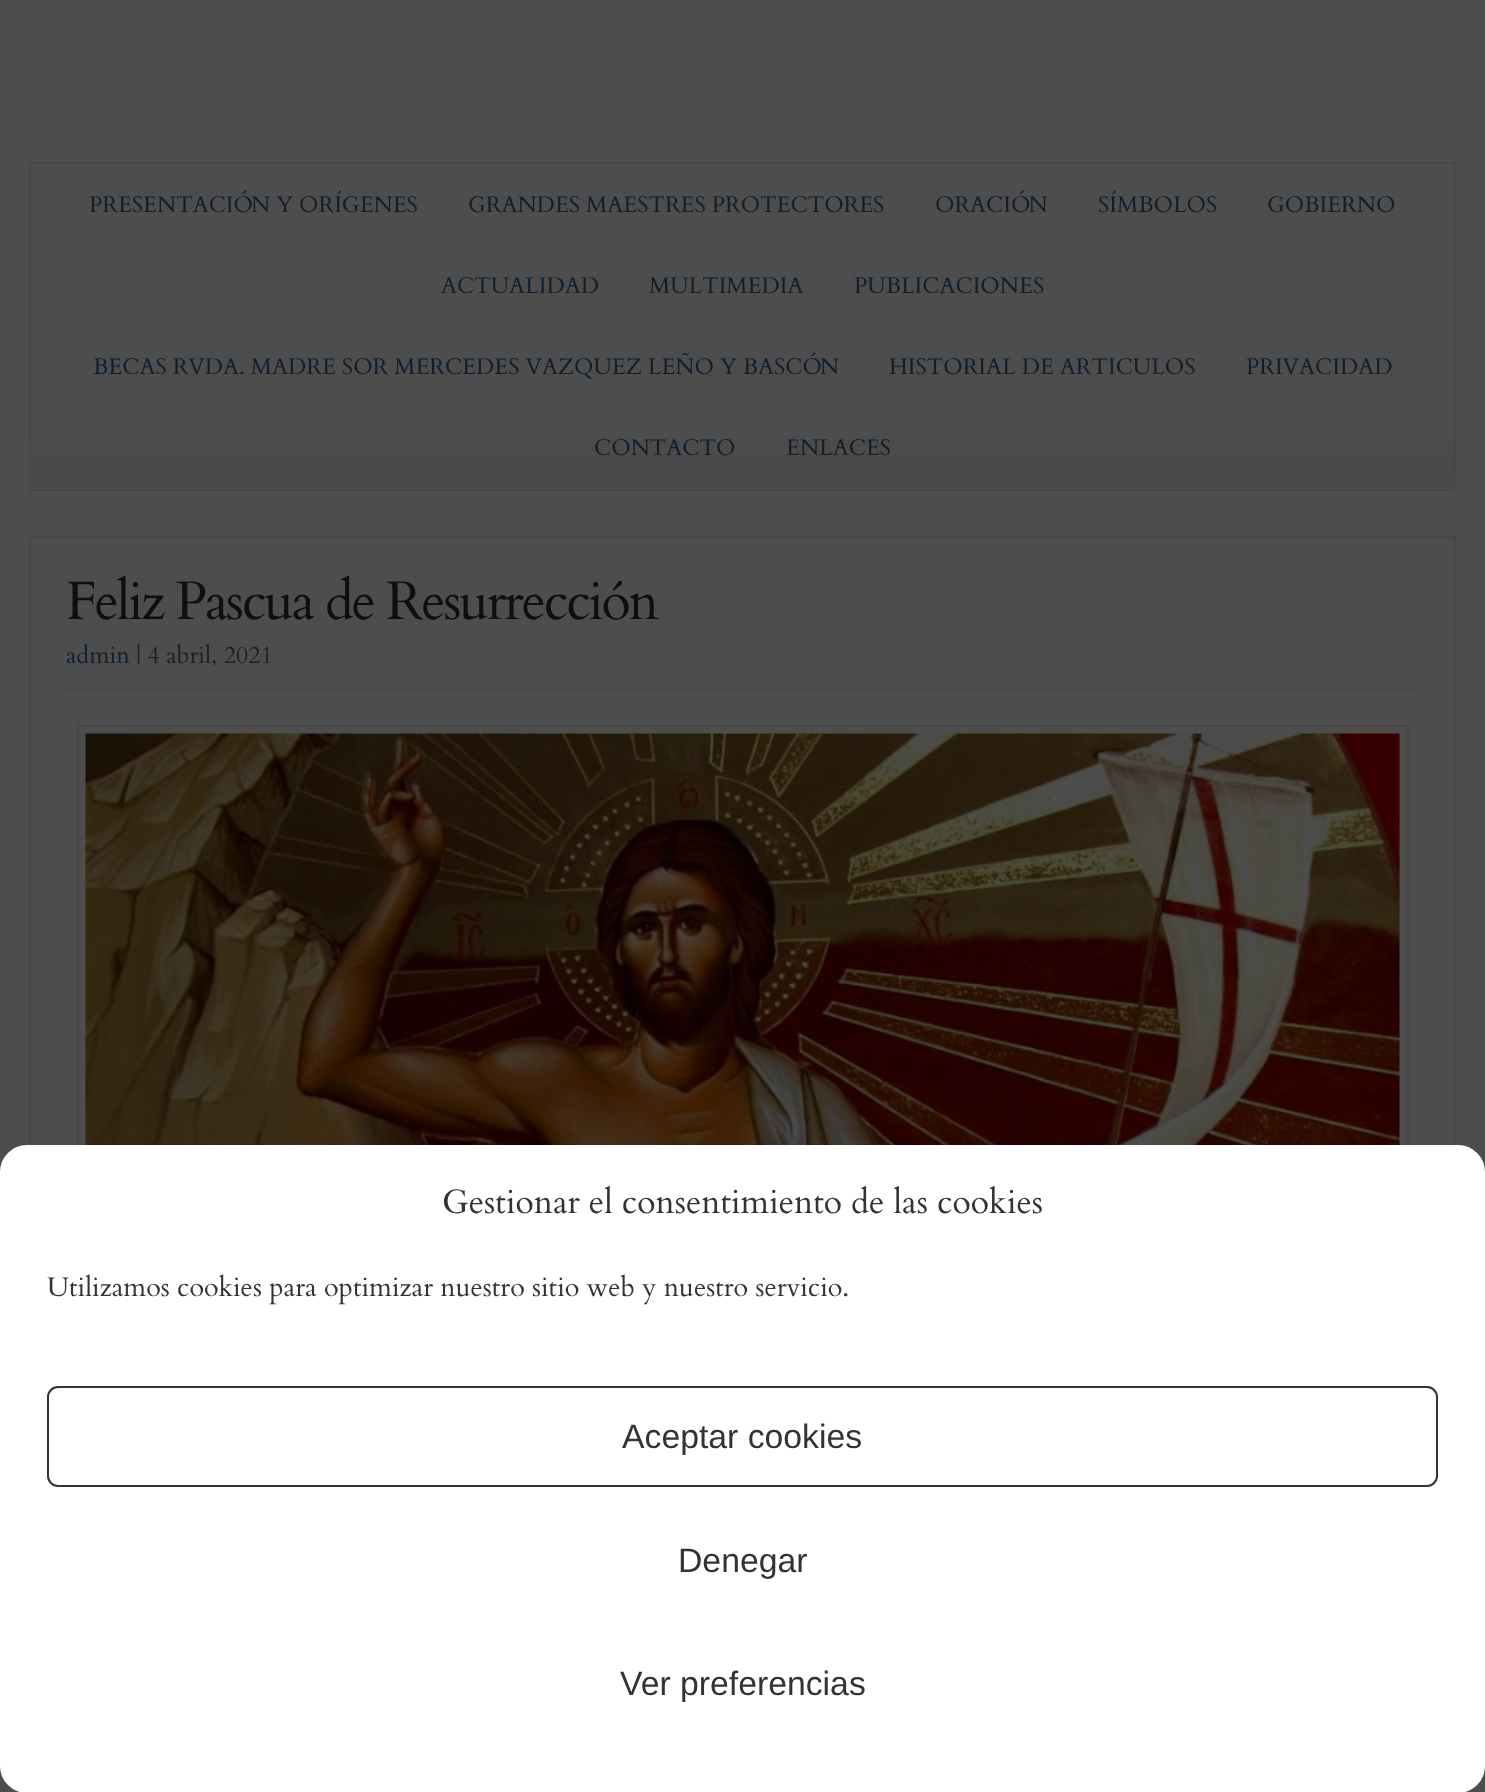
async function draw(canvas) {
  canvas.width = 1485;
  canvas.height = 1792;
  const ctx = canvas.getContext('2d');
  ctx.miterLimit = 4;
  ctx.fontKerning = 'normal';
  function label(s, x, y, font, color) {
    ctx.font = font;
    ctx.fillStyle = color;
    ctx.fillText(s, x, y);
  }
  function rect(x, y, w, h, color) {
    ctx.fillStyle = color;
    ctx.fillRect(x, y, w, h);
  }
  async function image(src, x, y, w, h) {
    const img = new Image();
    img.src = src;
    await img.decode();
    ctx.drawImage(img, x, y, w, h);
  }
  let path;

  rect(0, 0, 1485, 1792, '#4d4d4d');
  await image('assets/img1.png', 31, 439, 1423, 49);
  ctx.strokeStyle = '#474747';
  ctx.lineWidth = 2;
  ctx.strokeRect(30, 163, 1425, 327);
  label('PRESENTACIÓN Y ORÍGENES', 89, 212, '22.5px Cardo', '#0f1f2e');
  label('GRANDES MAESTRES PROTECTORES', 468, 212, '22.5px Cardo', '#0f1f2e');
  label('ORACIÓN', 935, 212, '22.5px Cardo', '#0f1f2e');
  label('SÍMBOLOS', 1098, 212, '22.5px Cardo', '#0f1f2e');
  label('GOBIERNO', 1267, 212, '22.5px Cardo', '#0f1f2e');
  label('ACTUALIDAD', 441, 293, '22.5px Cardo', '#0f1f2e');
  label('MULTIMEDIA', 649, 293, '22.5px Cardo', '#0f1f2e');
  label('PUBLICACIONES', 854, 293, '22.5px Cardo', '#0f1f2e');
  label('BECAS RVDA. MADRE SOR MERCEDES VAZQUEZ LEÑO Y BASCÓN', 93, 374, '22.5px Cardo', '#0f1f2e');
  label('HISTORIAL DE ARTICULOS', 889, 374, '22.5px Cardo', '#0f1f2e');
  label('PRIVACIDAD', 1246, 374, '22.5px Cardo', '#0f1f2e');
  label('CONTACTO', 594, 455, '22.5px Cardo', '#0f1f2e');
  label('ENLACES', 786, 455, '22.5px Cardo', '#0f1f2e');
  ctx.strokeRect(30, 537, 1425, 988);
  ctx.letterSpacing = '-2.25px';
  label('Feliz Pascua de Resurrección', 66, 619, '54px Cardo', '#0f0f0f');
  path = new Path2D('M65 689.5H1420');
  ctx.strokeStyle = '#424242';
  ctx.lineWidth = 2.2;
  ctx.setLineDash([2.25, 2.25]);
  ctx.stroke(path);
  ctx.letterSpacing = '0px';
  label('admin', 66, 663, '24px Cardo', '#0f1f2e');
  label('| 4 abril, 2021', 136, 663, '24px Cardo', '#1f1f1f');
  ctx.strokeStyle = '#474747';
  ctx.lineWidth = 2;
  ctx.setLineDash([]);
  ctx.strokeRect(78, 726, 1330, 655);
  await image('assets/img2.png', 85, 733, 1315, 412);
  ctx.fillStyle = '#fff';
  ctx.beginPath();
  ctx.roundRect(1, 1146, 1483, 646, 26);
  ctx.fill();
  ctx.strokeStyle = '#fff';
  ctx.stroke();
  label('Gestionar el consentimiento de las cookies', 442, 1213, '33.75px Cardo', '#333');
  label('Utilizamos cookies para optimizar nuestro sitio web y nuestro servicio.', 47, 1296, '27px Cardo', '#333');
  ctx.beginPath();
  ctx.roundRect(48, 1387, 1389, 99, 10);
  ctx.strokeStyle = '#333';
  ctx.stroke();
  label('Aceptar cookies', 622, 1448, '33.75px Liberation Sans', '#333');
  label('Denegar', 678, 1572, '33.75px Liberation Sans', '#333');
  label('Ver preferencias', 620, 1695, '33.75px Liberation Sans', '#333');
}

draw(document.querySelector('canvas'));
